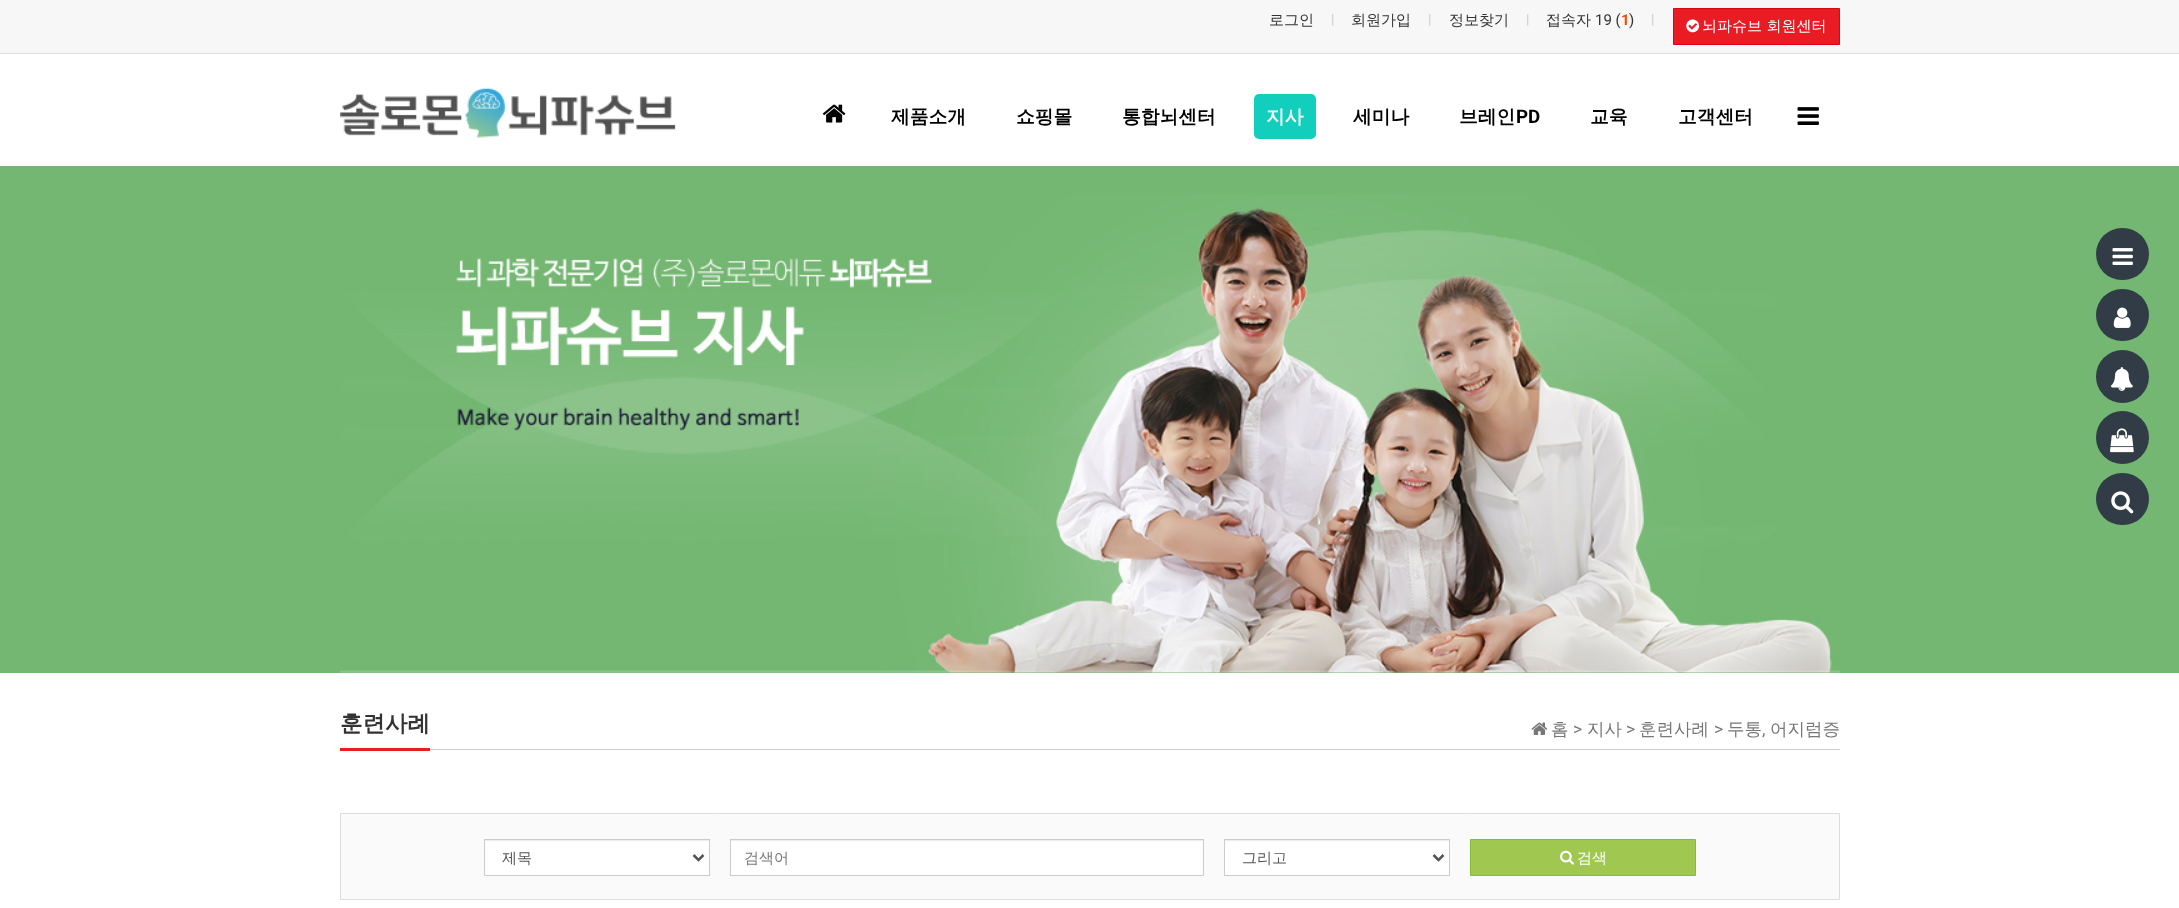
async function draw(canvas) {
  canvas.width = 2179;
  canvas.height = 908;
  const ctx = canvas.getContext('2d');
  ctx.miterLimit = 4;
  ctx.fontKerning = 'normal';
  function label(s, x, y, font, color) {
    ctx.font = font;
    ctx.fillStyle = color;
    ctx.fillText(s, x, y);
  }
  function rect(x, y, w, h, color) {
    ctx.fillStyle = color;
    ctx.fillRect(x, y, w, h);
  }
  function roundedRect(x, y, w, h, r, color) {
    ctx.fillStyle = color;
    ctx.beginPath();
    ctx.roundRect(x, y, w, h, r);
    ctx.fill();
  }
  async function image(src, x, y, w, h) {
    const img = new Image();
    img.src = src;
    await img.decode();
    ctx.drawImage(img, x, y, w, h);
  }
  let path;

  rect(0, 0, 2179, 908, '#fff');
  rect(0, 0, 2179, 53, '#f7f7f7');
  label('로그인', 1269, 25, '500 15px WenQuanYi Zen Hei', '#333');
  label('|', 1331, 24, '14px Roboto', '#ccc');
  label('회원가입', 1351, 25, '500 15px WenQuanYi Zen Hei', '#333');
  label('|', 1428, 24, '14px Roboto', '#ccc');
  label('정보찾기', 1449, 25, '500 15px WenQuanYi Zen Hei', '#333');
  label('|', 1526, 24, '14px Roboto', '#ccc');
  label('접속자', 1546, 25, '500 15px WenQuanYi Zen Hei', '#333');
  label('19 (', 1595, 25, '15px Roboto', '#333');
  label('1', 1621, 25, 'bold 15px Roboto', '#ff4500');
  label(')', 1629, 25, '15px Roboto', '#333');
  label('|', 1651, 24, '14px Roboto', '#ccc');
  ctx.fillStyle = '#e91b23';
  ctx.beginPath();
  ctx.rect(1673.5, 8.5, 166, 36);
  ctx.fill();
  ctx.strokeStyle = '#d5070f';
  ctx.stroke();
  await image('assets/img1.png', 1686, 19, 14, 14);
  label('뇌파슈브 회원센터', 1702, 31, '500 15px WenQuanYi Zen Hei', '#fff');
  rect(0, 53, 2179, 1, '#ddd');
  await image('assets/img2.png', 340, 88, 336, 50);
  await image('assets/img3.png', 822, 104, 24, 19);
  label('제품소개', 891, 123, 'bold 18.75px WenQuanYi Zen Hei', '#000');
  label('쇼핑몰', 1016, 123, 'bold 18.75px WenQuanYi Zen Hei', '#000');
  label('통합뇌센터', 1122, 123, 'bold 18.75px WenQuanYi Zen Hei', '#000');
  roundedRect(1254, 94, 62, 45, 5, '#12cebd');
  label('지사', 1266, 123, 'bold 18.75px WenQuanYi Zen Hei', '#fff');
  label('세미나', 1353, 123, 'bold 18.75px WenQuanYi Zen Hei', '#000');
  label('브레인', 1459, 123, 'bold 18.75px WenQuanYi Zen Hei', '#000');
  label('PD', 1516, 123, 'bold 18.75px Roboto', '#000');
  label('교육', 1590, 123, 'bold 18.75px WenQuanYi Zen Hei', '#000');
  label('고객센터', 1678, 123, 'bold 18.75px WenQuanYi Zen Hei', '#000');
  await image('assets/img4.png', 1797, 107, 22, 18);
  rect(0, 166, 2179, 507, '#74b772');
  await image('assets/img5.png', 340, 194, 1500, 479);
  rect(430, 749, 1410, 1, '#ccc');
  rect(340, 748, 90, 3, '#e91b23');
  label('훈련사례', 340, 731, 'bold 22.5px WenQuanYi Zen Hei', '#333');
  await image('assets/img6.png', 1531, 722, 17, 13);
  label('홈', 1551, 735, '500 17.5px WenQuanYi Zen Hei', '#777');
  label('>', 1573, 735, '17.5px Roboto', '#777');
  label('지사', 1587, 735, '500 17.5px WenQuanYi Zen Hei', '#777');
  label('>', 1626, 735, '17.5px Roboto', '#777');
  label('훈련사례', 1639, 735, '500 17.5px WenQuanYi Zen Hei', '#777');
  label('>', 1714, 735, '17.5px Roboto', '#777');
  label('두통', 1727, 735, '500 17.5px WenQuanYi Zen Hei', '#777');
  label('어지럼증', 1770, 735, '500 17.5px WenQuanYi Zen Hei', '#777');
  label(',', 1762, 735, '17.5px Roboto', '#777');
  ctx.fillStyle = '#fafafa';
  ctx.beginPath();
  ctx.rect(340.5, 813.5, 1499, 86);
  ctx.fill();
  ctx.strokeStyle = '#ddd';
  ctx.stroke();
  rect(485, 841, 224, 34, '#fff');
  rect(485, 840, 224, 1, '#ececec');
  ctx.strokeStyle = '#ccc';
  ctx.strokeRect(484.5, 839.5, 225, 36);
  path = new Path2D('M693.5 855L698.5 860L703.5 855');
  ctx.strokeStyle = '#555';
  ctx.lineWidth = 2.5;
  ctx.stroke(path);
  label('제목', 502, 863, '500 15px WenQuanYi Zen Hei', '#555');
  rect(731, 841, 472, 34, '#fff');
  rect(731, 840, 472, 1, '#ececec');
  ctx.strokeStyle = '#ccc';
  ctx.lineWidth = 1;
  ctx.strokeRect(730.5, 839.5, 473, 36);
  label('검색어', 744, 863, '500 15px WenQuanYi Zen Hei', '#777');
  rect(1225, 841, 224, 34, '#fff');
  rect(1225, 840, 224, 1, '#ececec');
  ctx.strokeRect(1224.5, 839.5, 225, 36);
  path = new Path2D('M1433.5 855L1438.5 860L1443.5 855');
  ctx.strokeStyle = '#555';
  ctx.lineWidth = 2.5;
  ctx.stroke(path);
  label('그리고', 1242, 863, '500 15px WenQuanYi Zen Hei', '#555');
  ctx.fillStyle = '#a0c850';
  ctx.beginPath();
  ctx.rect(1470.5, 839.5, 225, 36);
  ctx.fill();
  ctx.strokeStyle = '#82be3c';
  ctx.lineWidth = 1;
  ctx.stroke();
  await image('assets/img7.png', 1560, 850, 14, 15);
  label('검색', 1577, 863, '500 15px WenQuanYi Zen Hei', '#fff');
  roundedRect(2096, 228, 53, 52, 26, '#323c46');
  await image('assets/img8.png', 2112, 248, 21, 17);
  roundedRect(2096, 289, 53, 52, 26, '#323c46');
  await image('assets/img9.png', 2113, 307, 18, 21);
  ctx.beginPath();
  ctx.arc(2122.5, 376.5, 26.5, 0, 2 * Math.PI);
  ctx.fill();
  await image('assets/img10.png', 2110, 367, 23, 24);
  ctx.beginPath();
  ctx.arc(2122.5, 437.5, 26.5, 0, 2 * Math.PI);
  ctx.fill();
  await image('assets/img11.png', 2110, 428, 24, 25);
  roundedRect(2096, 473, 53, 52, 26, '#323c46');
  await image('assets/img12.png', 2111, 491, 23, 23);
}

draw(document.querySelector('canvas'));
